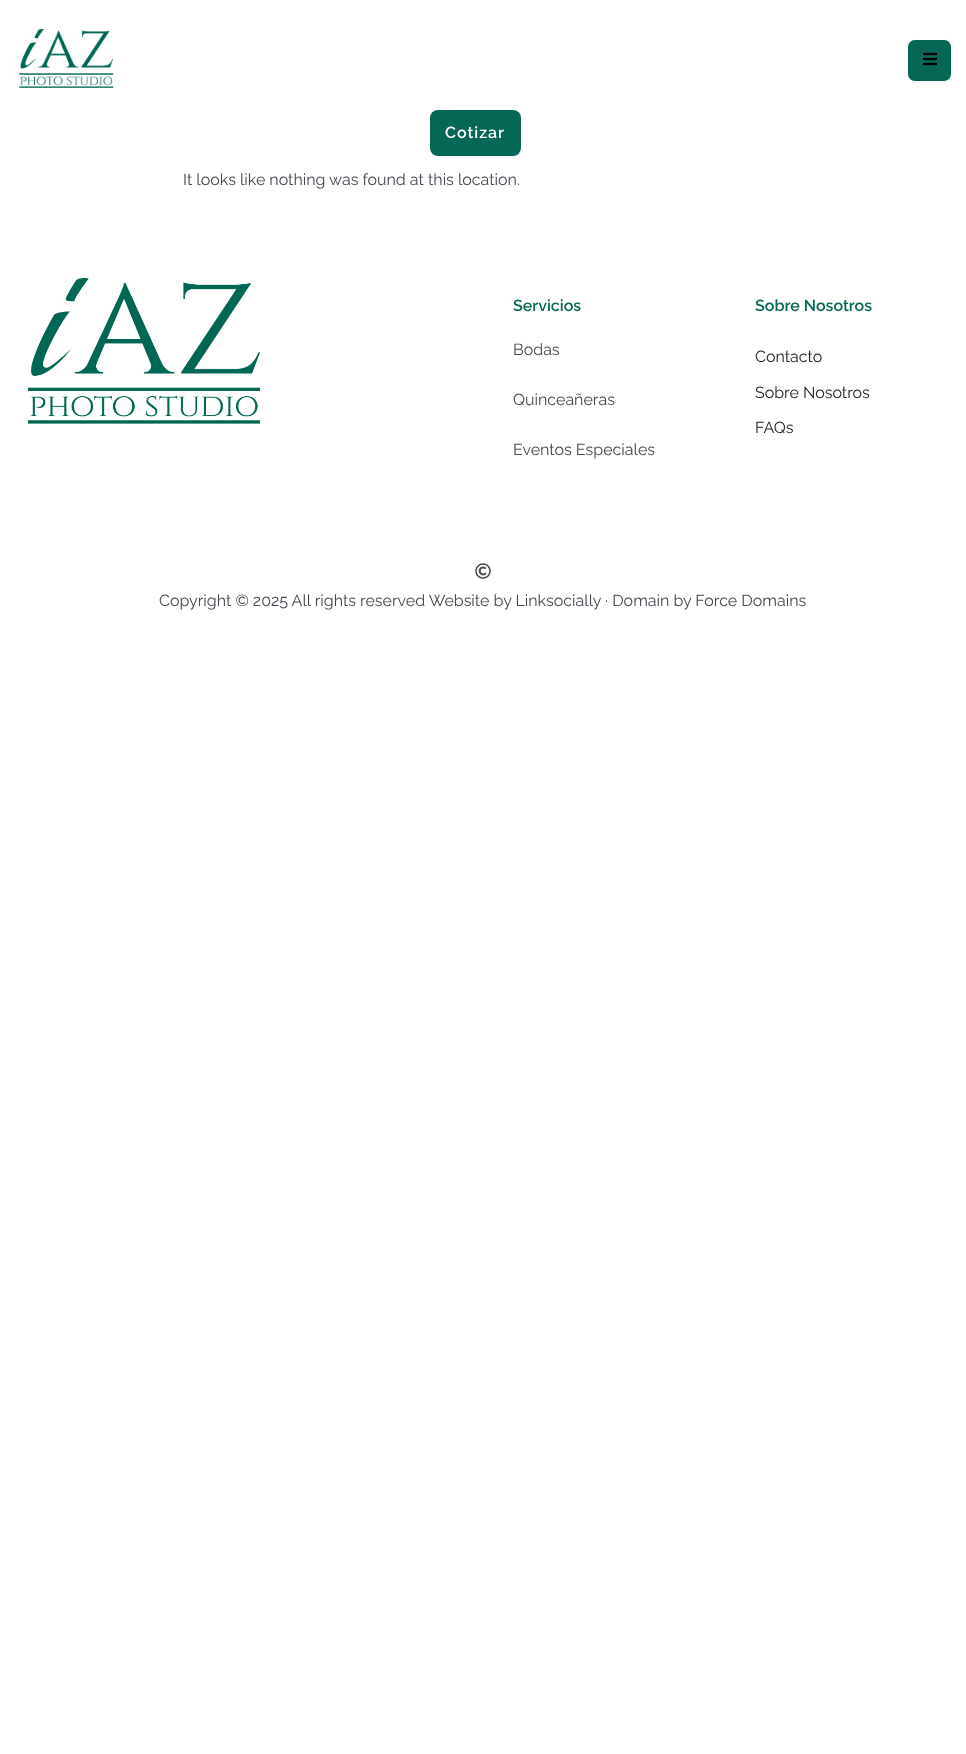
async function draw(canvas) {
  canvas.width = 966;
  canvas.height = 1754;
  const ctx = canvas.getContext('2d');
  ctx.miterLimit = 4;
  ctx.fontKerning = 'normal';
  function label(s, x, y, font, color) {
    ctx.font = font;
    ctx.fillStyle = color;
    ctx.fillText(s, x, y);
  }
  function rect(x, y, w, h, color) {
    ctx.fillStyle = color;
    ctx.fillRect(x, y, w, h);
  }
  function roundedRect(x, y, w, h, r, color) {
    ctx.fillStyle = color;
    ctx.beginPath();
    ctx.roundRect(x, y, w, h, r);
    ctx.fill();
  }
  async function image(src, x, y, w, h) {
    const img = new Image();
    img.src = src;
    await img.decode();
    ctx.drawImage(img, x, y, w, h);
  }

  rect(0, 0, 966, 1754, '#fff');
  await image('assets/img1.png', 19, 28, 95, 60);
  ctx.fillStyle = '#066756';
  ctx.beginPath();
  ctx.roundRect(907.5, 39.5, 44, 42, 7.5);
  ctx.fill();
  ctx.strokeStyle = '#fff';
  ctx.stroke();
  await image('assets/img2.png', 923, 52, 14, 14);
  roundedRect(430, 110, 91, 46, 8, '#066756');
  ctx.letterSpacing = '1px';
  label('Cotizar', 445, 138, '600 16px Raleway', '#fff');
  ctx.letterSpacing = '0px';
  label('It looks like nothing was found at this location.', 183, 185, '16px Raleway', '#43474e');
  await image('assets/img3.png', 28, 278, 232, 146);
  label('Servicios', 513, 311, '600 16px Raleway', '#066756');
  label('Bodas', 513, 355, '16px Raleway', '#43474e');
  label('Quinceañeras', 513, 405, '16px Raleway', '#43474e');
  label('Eventos Especiales', 513, 455, '16px Raleway', '#43474e');
  label('Sobre Nosotros', 755, 311, '600 16px Raleway', '#066756');
  label('Contacto', 755, 362, '16px Raleway', '#232221');
  label('Sobre Nosotros', 755, 398, '16px Raleway', '#232221');
  label('FAQs', 755, 433, '16px Raleway', '#232221');
  await image('assets/img4.png', 475, 563, 16, 16);
  label('Copyright © 2025 All rights reserved Website by Linksocially · Domain by Force Domains', 159, 606, '16px Raleway', '#43474e');
}

draw(document.querySelector('canvas'));
